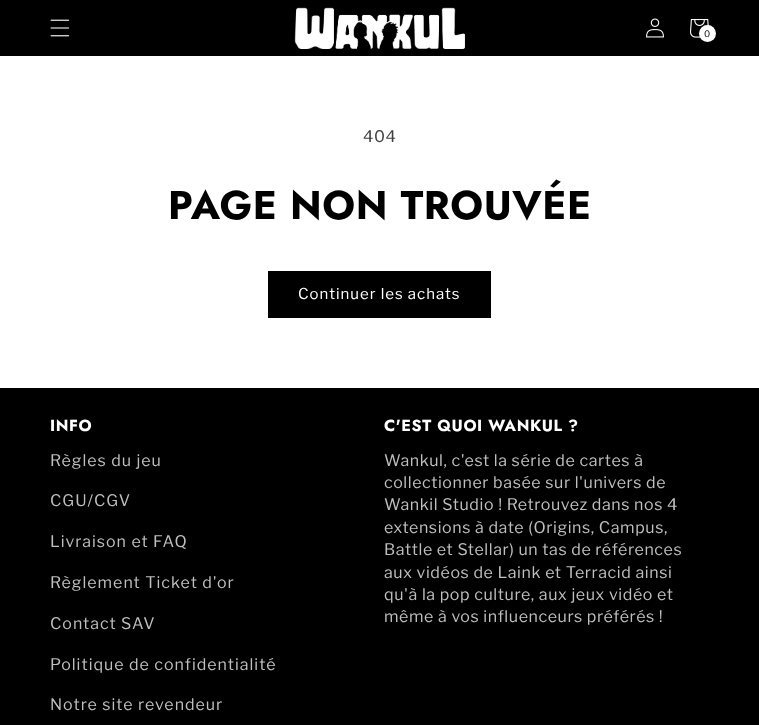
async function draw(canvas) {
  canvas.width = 759;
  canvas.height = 725;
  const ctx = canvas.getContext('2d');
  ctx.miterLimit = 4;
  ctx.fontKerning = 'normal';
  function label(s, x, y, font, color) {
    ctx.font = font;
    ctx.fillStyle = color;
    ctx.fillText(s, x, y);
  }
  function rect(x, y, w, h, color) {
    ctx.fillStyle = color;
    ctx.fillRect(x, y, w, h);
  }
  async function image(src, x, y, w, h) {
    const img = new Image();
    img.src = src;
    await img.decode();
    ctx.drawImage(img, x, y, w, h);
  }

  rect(0, 0, 759, 725, '#fff');
  rect(0, 0, 759, 56, '#000');
  await image('assets/img1.png', 50, 19, 20, 18);
  await image('assets/img2.png', 294, 7, 171, 42);
  await image('assets/img3.png', 646, 18, 18, 20);
  await image('assets/img4.png', 690, 19, 19, 19);
  ctx.fillStyle = '#fff';
  ctx.beginPath();
  ctx.arc(707.5, 33.5, 8.5, 0, 2 * Math.PI);
  ctx.fill();
  ctx.letterSpacing = '0.6px';
  label('0', 704, 37, '9px Libre Franklin', '#000');
  label('404', 363, 142, '16px Libre Franklin', '#404040');
  label('PAGE NON TROUVÉE', 168, 219, 'bold 40px Jost', '#000');
  rect(268, 271, 223, 47, '#000');
  ctx.letterSpacing = '1px';
  label('Continuer les achats', 298, 299, '15px Libre Franklin', '#fff');
  rect(0, 388, 759, 337, '#000');
  ctx.letterSpacing = '0.6px';
  label('INFO', 50, 431, 'bold 16px Jost', '#fff');
  ctx.letterSpacing = '1px';
  label('Règles du jeu', 50, 466, '16px Libre Franklin', '#bfbfbf');
  label('CGU/CGV', 50, 506, '16px Libre Franklin', '#bfbfbf');
  label('Livraison et FAQ', 50, 547, '16px Libre Franklin', '#bfbfbf');
  label('Règlement Ticket d\'or', 50, 588, '16px Libre Franklin', '#bfbfbf');
  label('Contact SAV', 50, 629, '16px Libre Franklin', '#bfbfbf');
  label('Politique de confidentialité', 50, 670, '16px Libre Franklin', '#bfbfbf');
  label('Notre site revendeur', 50, 710, '16px Libre Franklin', '#bfbfbf');
  ctx.letterSpacing = '0.6px';
  label('C\'EST QUOI WANKUL ?', 384, 431, 'bold 16px Jost', '#fff');
  label('Wankul, c\'est la série de cartes à', 384, 466, '16px Libre Franklin', '#bfbfbf');
  label('collectionner basée sur l\'univers de', 384, 488, '16px Libre Franklin', '#bfbfbf');
  label('Wankil Studio ! Retrouvez dans nos 4', 384, 510, '16px Libre Franklin', '#bfbfbf');
  label('extensions à date (Origins, Campus,', 384, 533, '16px Libre Franklin', '#bfbfbf');
  label('Battle et Stellar) un tas de références', 384, 555, '16px Libre Franklin', '#bfbfbf');
  label('aux vidéos de Laink et Terracid ainsi', 384, 578, '16px Libre Franklin', '#bfbfbf');
  label('qu\'à la pop culture, aux jeux vidéo et', 384, 600, '16px Libre Franklin', '#bfbfbf');
  label('même à vos influenceurs préférés !', 384, 622, '16px Libre Franklin', '#bfbfbf');
}

draw(document.querySelector('canvas'));
